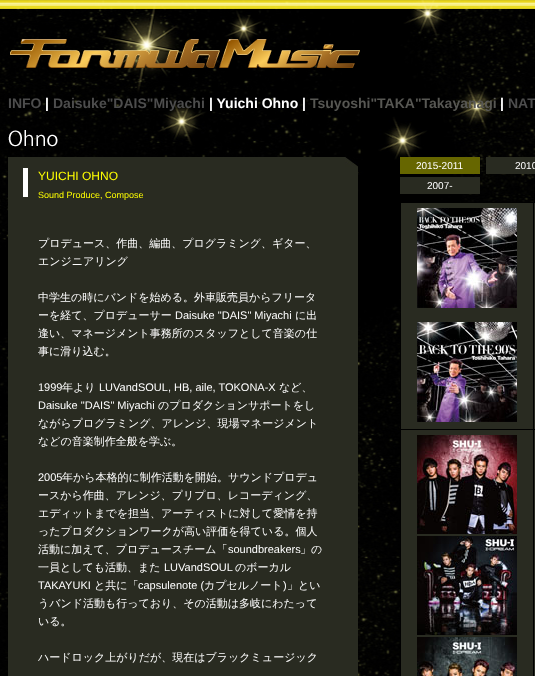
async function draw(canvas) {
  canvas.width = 535;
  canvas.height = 676;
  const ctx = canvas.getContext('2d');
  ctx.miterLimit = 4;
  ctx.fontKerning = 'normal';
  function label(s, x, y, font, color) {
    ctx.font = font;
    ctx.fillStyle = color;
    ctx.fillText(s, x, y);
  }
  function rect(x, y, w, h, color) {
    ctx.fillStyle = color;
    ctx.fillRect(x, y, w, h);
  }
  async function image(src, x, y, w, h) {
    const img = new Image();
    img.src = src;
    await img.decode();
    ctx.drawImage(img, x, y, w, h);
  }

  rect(0, 0, 535, 676, '#fff');
  await image('assets/img1.png', 0, 0, 535, 676);
  await image('assets/img2.png', 10, 39, 350, 29);
  label('INFO', 8, 108, 'bold 14px Liberation Sans', '#4d4d4d');
  label('|', 45, 108, 'bold 14px Liberation Sans', '#fff');
  label('Daisuke"DAIS"Miyachi', 53, 108, 'bold 14px Liberation Sans', '#4d4d4d');
  label('| Yuichi Ohno |', 209, 108, 'bold 14px Liberation Sans', '#fff');
  label('Tsuyoshi"TAKA"Takayanagi', 310, 108, 'bold 14px Liberation Sans', '#575753');
  label('|', 500, 108, 'bold 14px Liberation Sans', '#fff');
  label('NAT', 508, 108, 'bold 14px Liberation Sans', '#4d4d4d');
  await image('assets/img3.png', 8, 130, 50, 17);
  rect(8, 157, 337, 10, '#292b21');
  await image('assets/img4.png', 345, 157, 13, 10);
  rect(8, 167, 350, 509, '#292b21');
  rect(23, 168, 5, 29, '#fff');
  label('YUICHI OHNO', 38, 180, '12px Liberation Sans', '#ff0');
  label('Sound Produce, Compose', 38, 198, '9px Liberation Sans', '#ff0');
  label('プロデュース、作曲、編曲、プログラミング、ギター、', 38, 247, '500 11px WenQuanYi Zen Hei', '#fff');
  label('エンジニアリング', 38, 265, '500 11px WenQuanYi Zen Hei', '#fff');
  label('中学生の時にバンドを始める。外車販売員からフリータ', 38, 301, '500 11px WenQuanYi Zen Hei', '#fff');
  label('ーを経て、プロデューサー', 38, 319, '500 11px WenQuanYi Zen Hei', '#fff');
  label('Daisuke "DAIS" Miyachi', 175, 319, '11px Liberation Sans', '#fff');
  label('に出', 295, 319, '500 11px WenQuanYi Zen Hei', '#fff');
  label('逢い、マネージメント事務所のスタッフとして音楽の仕', 38, 337, '500 11px WenQuanYi Zen Hei', '#fff');
  label('事に滑り込む。', 38, 355, '500 11px WenQuanYi Zen Hei', '#fff');
  label('1999', 38, 391, '11px Liberation Sans', '#fff');
  label('年より', 62, 391, '500 11px WenQuanYi Zen Hei', '#fff');
  label('LUVandSOUL, HB, aile, TOKONA-X', 99, 391, '11px Liberation Sans', '#fff');
  label('など、', 279, 391, '500 11px WenQuanYi Zen Hei', '#fff');
  label('Daisuke "DAIS" Miyachi', 38, 409, '11px Liberation Sans', '#fff');
  label('のプロダクションサポートをし', 158, 409, '500 11px WenQuanYi Zen Hei', '#fff');
  label('ながらプログラミング、アレンジ、現場マネージメント', 38, 427, '500 11px WenQuanYi Zen Hei', '#fff');
  label('などの音楽制作全般を学ぶ。', 38, 445, '500 11px WenQuanYi Zen Hei', '#fff');
  label('2005', 38, 481, '11px Liberation Sans', '#fff');
  label('年から本格的に制作活動を開始。サウンドプロデュ', 62, 481, '500 11px WenQuanYi Zen Hei', '#fff');
  label('ースから作曲、アレンジ、プリプロ、レコーディング、', 38, 499, '500 11px WenQuanYi Zen Hei', '#fff');
  label('エディットまでを担当、アーティストに対して愛情を持', 38, 517, '500 11px WenQuanYi Zen Hei', '#fff');
  label('ったプロダクションワークが高い評価を得ている。個人', 38, 535, '500 11px WenQuanYi Zen Hei', '#fff');
  label('活動に加えて、プロデュースチーム「', 38, 553, '500 11px WenQuanYi Zen Hei', '#fff');
  label('soundbreakers', 228, 553, '11px Liberation Sans', '#fff');
  label('」の', 300, 553, '500 11px WenQuanYi Zen Hei', '#fff');
  label('一員としても活動、また', 38, 571, '500 11px WenQuanYi Zen Hei', '#fff');
  label('LUVandSOUL', 164, 571, '11px Liberation Sans', '#fff');
  label('のボーカル', 235, 571, '500 11px WenQuanYi Zen Hei', '#fff');
  label('TAKAYUKI', 38, 589, '11px Liberation Sans', '#fff');
  label('と共に「', 94, 589, '500 11px WenQuanYi Zen Hei', '#fff');
  label('capsulenote (', 138, 589, '11px Liberation Sans', '#fff');
  label('カプセルノート', 204, 589, '500 11px WenQuanYi Zen Hei', '#fff');
  label(')', 283, 589, '11px Liberation Sans', '#fff');
  label('」とい', 287, 589, '500 11px WenQuanYi Zen Hei', '#fff');
  label('うバンド活動も行っており、その活動は多岐にわたって', 38, 607, '500 11px WenQuanYi Zen Hei', '#fff');
  label('いる。', 38, 625, '500 11px WenQuanYi Zen Hei', '#fff');
  label('ハードロック上がりだが、現在はブラックミュージック', 38, 661, '500 11px WenQuanYi Zen Hei', '#fff');
  rect(400, 157, 80, 17, '#660');
  label('2015-2011', 416, 169, '10px Liberation Sans', '#fff');
  rect(486, 157, 49, 17, '#292b21');
  label('2010', 515, 169, '10px Liberation Sans', '#fff');
  rect(400, 177, 80, 17, '#292b21');
  label('2007-', 427, 189, '10px Liberation Sans', '#fff');
  rect(401, 203, 134, 473, '#292b21');
  rect(492, 202, 43, 1, '#000');
  rect(400, 313, 1, 363, '#000');
  await image('assets/img5.png', 417, 208, 100, 100);
  await image('assets/img6.png', 417, 322, 100, 100);
  rect(533, 429, 2, 1, '#000');
  rect(533, 429, 1, 247, '#000');
  rect(400, 429, 134, 1, '#000');
  rect(533, 202, 1, 228, '#000');
  await image('assets/img7.png', 417, 435, 100, 99);
  await image('assets/img8.png', 417, 536, 100, 99);
  await image('assets/img9.png', 417, 637, 100, 39);
}

draw(document.querySelector('canvas'));
